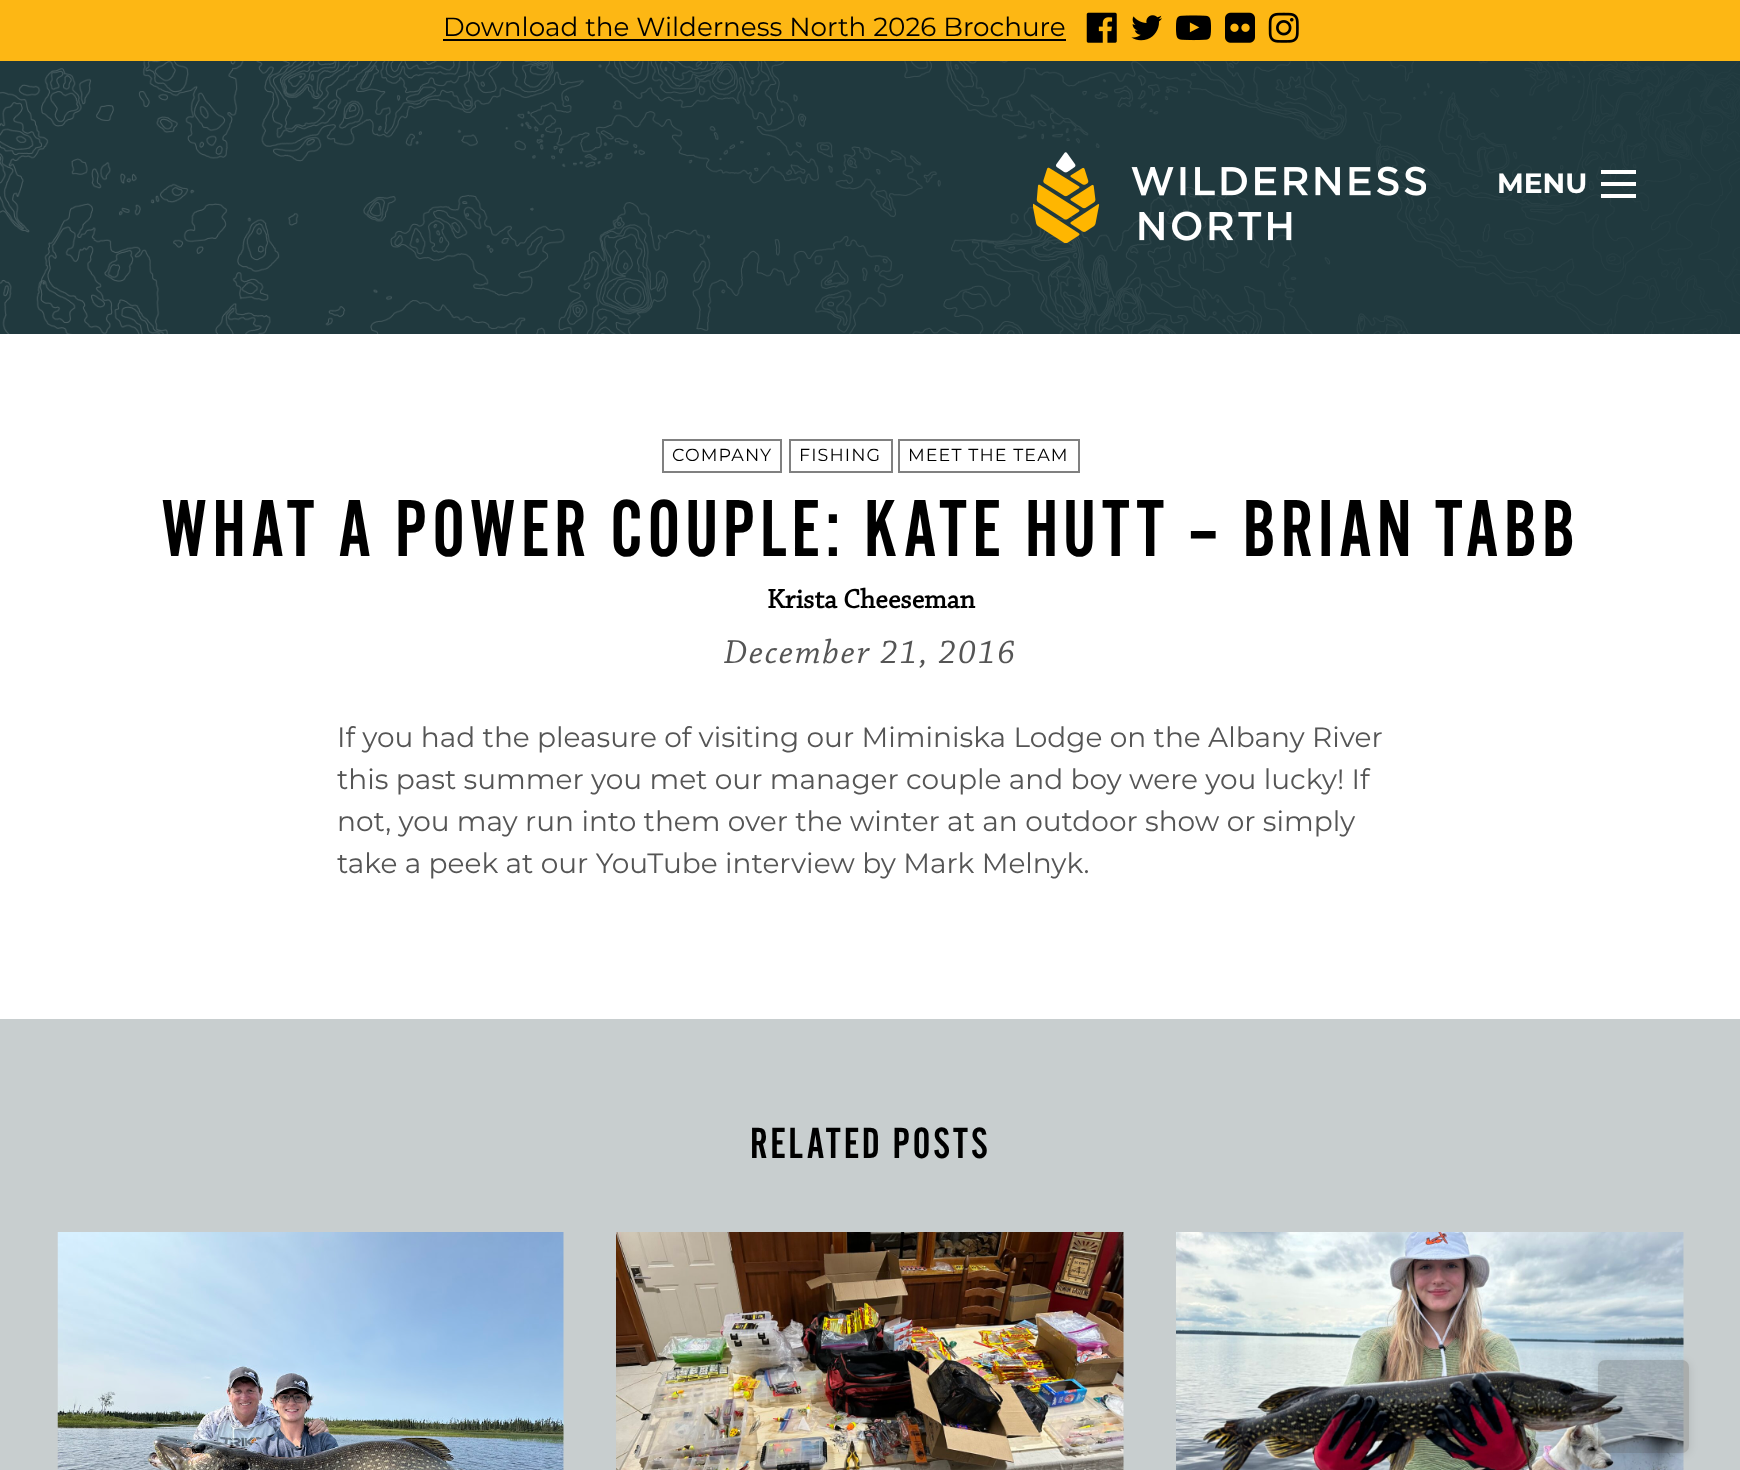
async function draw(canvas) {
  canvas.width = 1740;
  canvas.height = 1470;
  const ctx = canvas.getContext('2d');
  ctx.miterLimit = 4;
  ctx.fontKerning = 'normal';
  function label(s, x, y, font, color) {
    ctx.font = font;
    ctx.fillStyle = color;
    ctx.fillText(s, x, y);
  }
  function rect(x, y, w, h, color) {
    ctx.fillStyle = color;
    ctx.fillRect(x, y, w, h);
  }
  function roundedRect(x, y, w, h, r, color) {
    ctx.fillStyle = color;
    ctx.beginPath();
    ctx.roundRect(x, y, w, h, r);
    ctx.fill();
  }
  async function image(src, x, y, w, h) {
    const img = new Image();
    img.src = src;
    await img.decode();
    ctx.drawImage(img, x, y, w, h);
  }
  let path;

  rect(0, 0, 1740, 1470, '#fff');
  rect(0, 0, 1740, 61, '#fdb714');
  label('Download the Wilderness North 2026 Brochure', 443, 36, '26.25px Montserrat', '#000');
  rect(443, 39, 623, 2, '#000');
  await image('assets/img1.png', 1086, 12, 31, 31);
  await image('assets/img2.png', 1131, 15, 31, 26);
  await image('assets/img3.png', 1176, 15, 35, 26);
  await image('assets/img4.png', 1225, 12, 30, 31);
  await image('assets/img5.png', 1268, 12, 31, 31);
  rect(0, 61, 1740, 273, '#20393e');
  await image('assets/img6.png', 0, 61, 1740, 273);
  await image('assets/img7.png', 1033, 152, 393, 91);
  label('MENU', 1497, 193, 'bold 28px Montserrat', '#fff');
  rect(1601, 182, 35, 4, '#fff');
  rect(1601, 170, 35, 4, '#fff');
  rect(1601, 194, 35, 4, '#fff');
  ctx.strokeStyle = '#808080';
  ctx.lineWidth = 2;
  ctx.strokeRect(663, 440, 118, 32);
  ctx.letterSpacing = '1.1px';
  label('COMPANY', 672, 461, '17.5px Montserrat', '#000');
  ctx.strokeRect(790, 440, 102, 32);
  label('FISHING', 799, 461, '17.5px Montserrat', '#000');
  ctx.strokeRect(899, 440, 180, 32);
  label('MEET THE TEAM', 908, 461, '17.5px Montserrat', '#000');
  ctx.letterSpacing = '4.2px';
  label('WHAT A POWER COUPLE: KATE HUTT – BRIAN TABB', 161, 556, '84px "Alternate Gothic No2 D"', '#000');
  ctx.letterSpacing = '0px';
  label('Krista Cheeseman', 767, 608, 'bold 28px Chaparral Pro', '#000');
  ctx.letterSpacing = '1.75px';
  label('December 21, 2016', 724, 663, 'italic 35px Chaparral Pro', '#555');
  ctx.letterSpacing = '0px';
  label('If you had the pleasure of visiting our Miminiska Lodge on the Albany River', 337, 747, '28px Montserrat', '#555');
  label('this past summer you met our manager couple and boy were you lucky! If', 337, 789, '28px Montserrat', '#555');
  label('not, you may run into them over the winter at an outdoor show or simply', 337, 831, '28px Montserrat', '#555');
  label('take a peek at our YouTube interview by Mark Melnyk.', 337, 873, '28px Montserrat', '#555');
  rect(0, 1019, 1740, 451, '#c8cecf');
  ctx.letterSpacing = '2.25px';
  label('RELATED POSTS', 750, 1158, '45.5px "Alternate Gothic No2 D"', '#000');
  await image('assets/img8.png', 57, 1232, 507, 238);
  await image('assets/img9.png', 616, 1232, 508, 238);
  await image('assets/img10.png', 1176, 1232, 508, 238);
  ctx.save();
  path = new Path2D('M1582 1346H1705V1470H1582ZM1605 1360H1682C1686 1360 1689 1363 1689 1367V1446C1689 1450 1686 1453 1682 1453H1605C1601 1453 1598 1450 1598 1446V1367C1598 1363 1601 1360 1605 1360Z');
  ctx.clip(path, 'evenodd');
  ctx.fillStyle = '#0000001c';
  ctx.filter = 'blur(5px)';
  ctx.beginPath();
  ctx.roundRect(1598, 1362, 91, 92, 7);
  ctx.fill();
  ctx.filter = 'none';
  ctx.restore();
  roundedRect(1598, 1360, 91, 93, 7, '#1a0b022b');
  await image('assets/img11.png', 1624, 1386, 44, 44);
}

draw(document.querySelector('canvas'));
